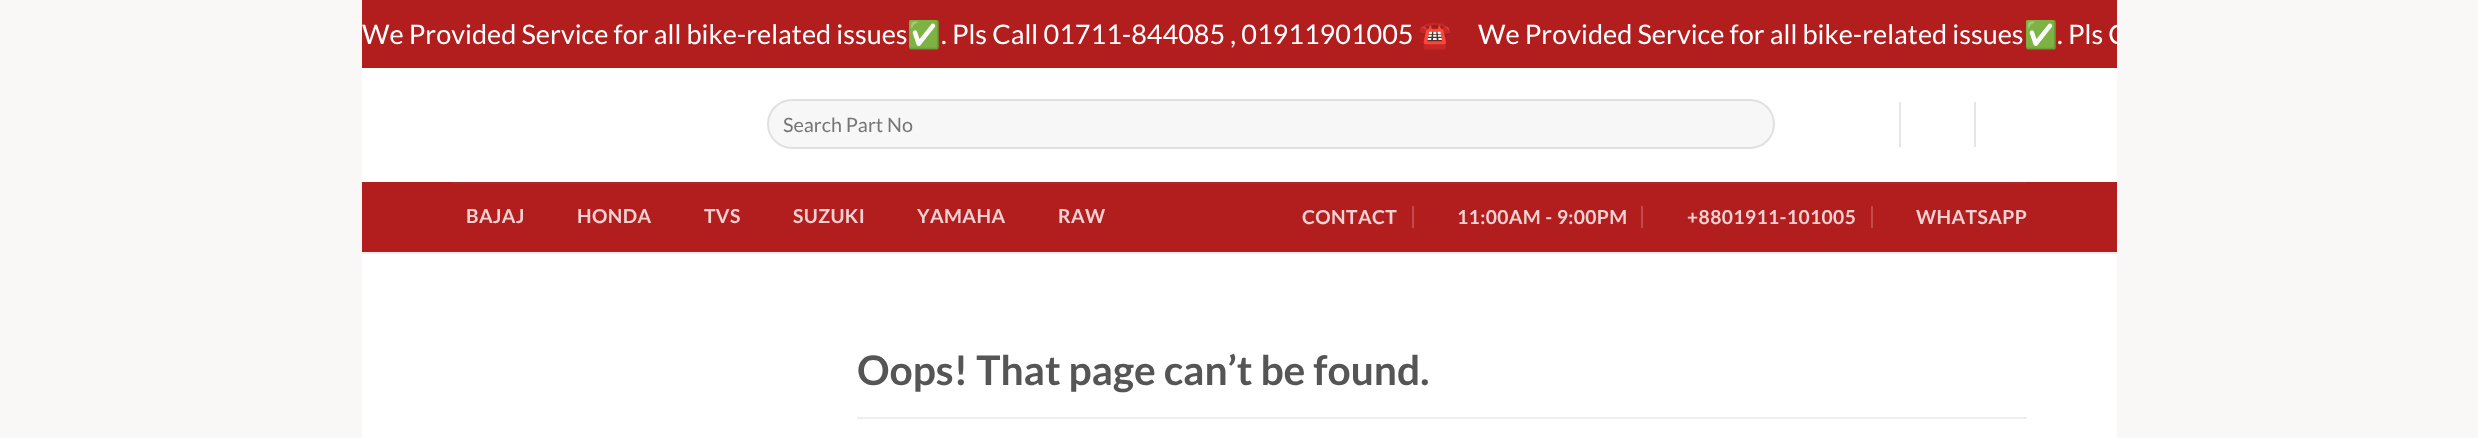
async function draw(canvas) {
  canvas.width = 2478;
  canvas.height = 438;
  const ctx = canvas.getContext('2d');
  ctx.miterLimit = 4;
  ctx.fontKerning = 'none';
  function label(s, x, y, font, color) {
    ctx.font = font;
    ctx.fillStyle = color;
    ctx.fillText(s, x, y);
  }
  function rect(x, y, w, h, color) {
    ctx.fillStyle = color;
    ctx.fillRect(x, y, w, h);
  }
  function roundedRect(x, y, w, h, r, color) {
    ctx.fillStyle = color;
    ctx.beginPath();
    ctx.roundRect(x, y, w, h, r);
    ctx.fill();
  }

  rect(0, 0, 2478, 438, '#faf8f7');
  rect(362, 0, 1755, 68, '#b21e1e');
  label('We Provided Service for all bike-related issues', 362, 44, '27px Lato', '#fff');
  label('✅', 907, 44, '27px Noto Color Emoji', '#fff');
  label('. Pls Call 01711-844085 , 01911901005', 941, 44, '27px Lato', '#fff');
  label('☎️', 1418, 44, '27px Noto Color Emoji', '#fff');
  label('We Provided Service for all bike-related issues', 1478, 44, '27px Lato', '#fff');
  label('✅', 2024, 44, '27px Noto Color Emoji', '#fff');
  label('.', 2057, 44, '27px Lato', '#fff');
  ctx.save();
  ctx.beginPath();
  ctx.rect(362, 0, 1755, 68);
  ctx.clip();
  label('Pls C', 2068, 44, '27px Lato', '#fff');
  ctx.restore();
  rect(362, 68, 1755, 370, '#fff');
  rect(362, 252, 1755, 2, '#eee');
  roundedRect(767, 99, 1008, 50, 25, '#f7f7f7');
  ctx.beginPath();
  ctx.roundRect(768, 100, 1006, 48, 24);
  ctx.strokeStyle = '#00000017';
  ctx.lineWidth = 2;
  ctx.stroke();
  label('Search Part No', 783, 132, '19.75px Lato', '#757575');
  rect(1899, 102, 2, 45, '#e6e6e6');
  rect(1974, 102, 2, 45, '#e6e6e6');
  rect(362, 182, 1755, 70, '#b21e1e');
  rect(452, 182, 1575, 2, '#ac2727');
  ctx.letterSpacing = '0.4px';
  label('BAJAJ', 466, 223, 'bold 19.25px Lato', '#f0d2d2');
  label('HONDA', 577, 223, 'bold 19.25px Lato', '#f0d2d2');
  label('TVS', 704, 223, 'bold 19.25px Lato', '#f0d2d2');
  label('SUZUKI', 793, 223, 'bold 19.25px Lato', '#f0d2d2');
  label('YAMAHA', 917, 223, 'bold 19.25px Lato', '#f0d2d2');
  label('RAW', 1058, 223, 'bold 19.25px Lato', '#f0d2d2');
  label('CONTACT', 1302, 224, 'bold 19.25px Lato', '#f0d2d2');
  rect(1412, 206, 2, 22, '#c14b4b');
  label('11:00AM - 9:00PM', 1457, 224, 'bold 19.25px Lato', '#f0d2d2');
  rect(1641, 206, 2, 22, '#c14b4b');
  label('+8801911-101005', 1687, 224, 'bold 19.25px Lato', '#f0d2d2');
  rect(1871, 206, 2, 22, '#c14b4b');
  label('WHATSAPP', 1916, 224, 'bold 19.25px Lato', '#f0d2d2');
  rect(857, 417, 1170, 2, '#eee');
  ctx.letterSpacing = '0px';
  label('Oops! That page can’t be found.', 857, 385, 'bold 40.75px Lato', '#555');
}

draw(document.querySelector('canvas'));
